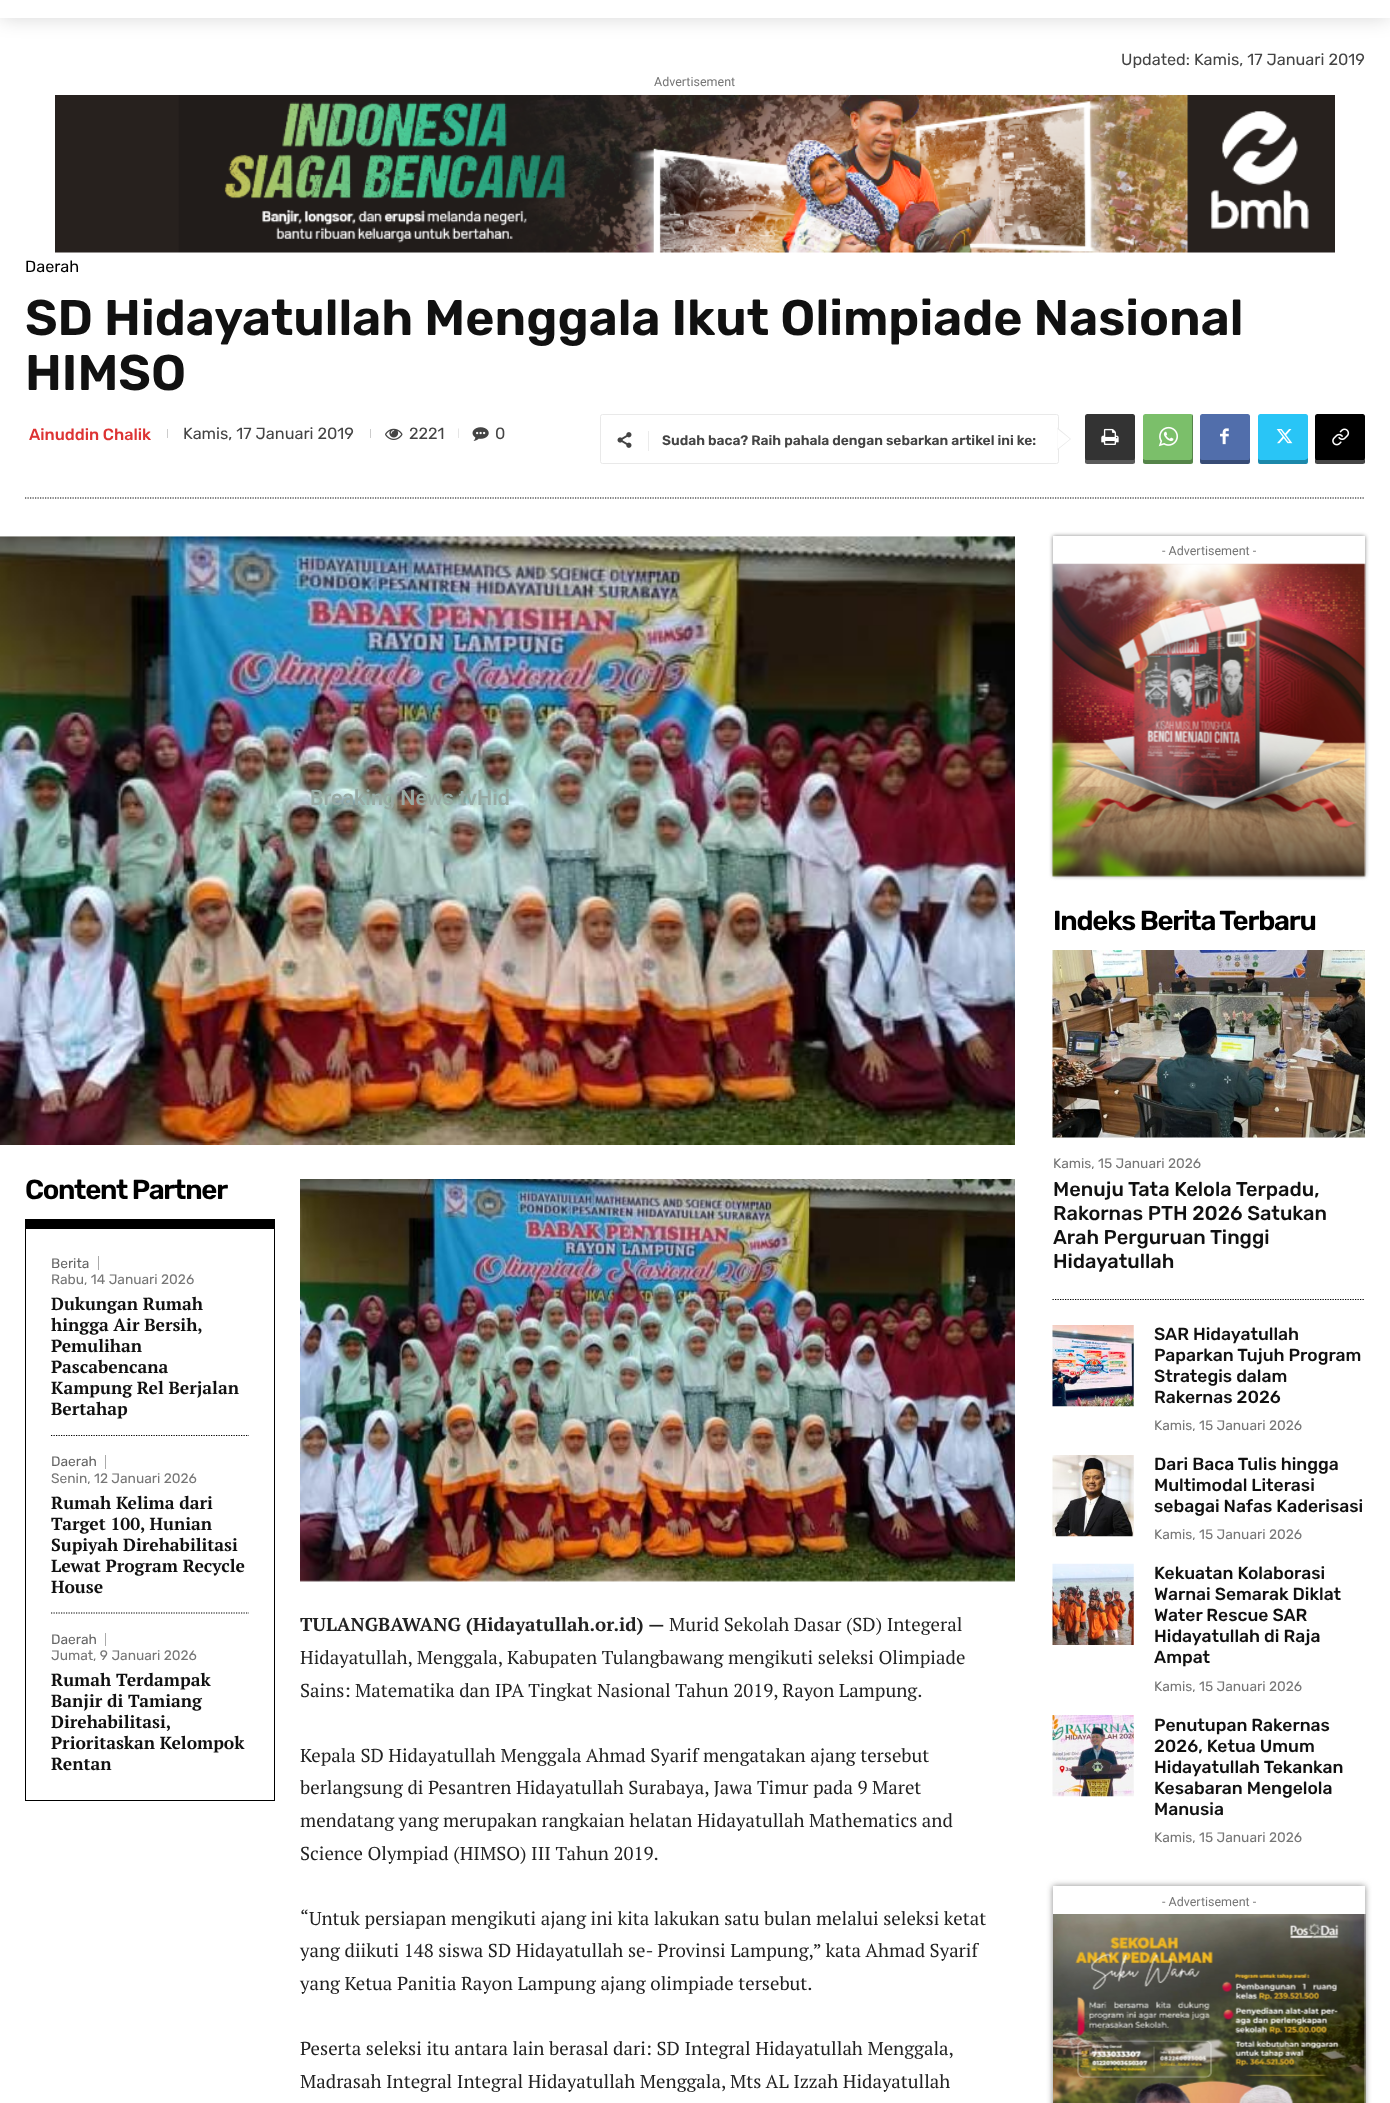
async function draw(canvas) {
  canvas.width = 1390;
  canvas.height = 2103;
  const ctx = canvas.getContext('2d');
  ctx.miterLimit = 4;
  ctx.fontKerning = 'normal';
  function label(s, x, y, font, color) {
    ctx.font = font;
    ctx.fillStyle = color;
    ctx.fillText(s, x, y);
  }
  function rect(x, y, w, h, color) {
    ctx.fillStyle = color;
    ctx.fillRect(x, y, w, h);
  }
  function roundedRect(x, y, w, h, r, color) {
    ctx.fillStyle = color;
    ctx.beginPath();
    ctx.roundRect(x, y, w, h, r);
    ctx.fill();
  }
  async function image(src, x, y, w, h) {
    const img = new Image();
    img.src = src;
    await img.decode();
    ctx.drawImage(img, x, y, w, h);
  }
  let path;

  rect(0, 0, 1390, 2103, '#fff');
  ctx.fillStyle = '#00000029';
  ctx.filter = 'blur(10px)';
  ctx.beginPath();
  ctx.rect(0, -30, 1390, 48);
  ctx.fill();
  ctx.filter = 'none';
  rect(0, 0, 1390, 18, '#fff');
  label('Updated: Kamis, 17 Januari 2019', 1121, 65, '16.25px Rubik', '#444');
  label('Advertisement', 654, 86, '12.5px Roboto', '#767676');
  await image('assets/img1.png', 55, 95, 1280, 158);
  label('Daerah', 25, 272, '16.25px Rubik', '#000');
  label('SD Hidayatullah Menggala Ikut Olimpiade Nasional', 25, 335, '600 50px Rubik', '#111');
  label('HIMSO', 25, 390, '600 50px Rubik', '#111');
  label('Ainuddin Chalik', 29, 440, '500 16.25px Rubik', '#d33');
  rect(167, 429, 1, 9, '#ccc');
  label('Kamis, 17 Januari 2019', 183, 439, '16.25px Rubik', '#444');
  rect(370, 429, 1, 9, '#ccc');
  await image('assets/img2.png', 385, 428, 18, 12);
  label('2221', 409, 439, '16.25px Rubik', '#444');
  ctx.fillStyle = '#ccc';
  path = new Path2D('M458.5 428.5H459V438H458.5Z');
  ctx.fill(path);
  await image('assets/img3.png', 472, 427, 17, 14);
  label('0', 495, 439, '16.25px Rubik', '#444');
  ctx.beginPath();
  ctx.roundRect(600.5, 414.5, 458, 49, 2);
  ctx.strokeStyle = '#e9e9e9';
  ctx.stroke();
  ctx.fillStyle = '#e9e9e9';
  path = new Path2D('M1057.5 450V427.5L1071 439Z');
  ctx.fill(path);
  await image('assets/img4.png', 617, 432, 15, 16);
  rect(648, 431, 1, 20, '#ebebeb');
  label('Sudah baca? Raih pahala dengan sebarkan artikel ini ke:', 662, 445, '600 13.75px Rubik', '#444');
  ctx.fillStyle = '#fff';
  path = new Path2D('M1057.5 449V429L1070 439Z');
  ctx.fill(path);
  roundedRect(1085, 414, 50, 50, 2.5, '#333');
  ctx.fillStyle = '#ffffff33';
  path = new Path2D('M1085 458C1085 466 1086 464 1095 464H1125C1134 464 1135 466 1135 458L1134 460C1132 460 1088 460 1086 460Z');
  ctx.fill(path);
  await image('assets/img5.png', 1101, 428, 18, 17);
  roundedRect(1143, 414, 50, 50, 2.5, '#7bbf6a');
  ctx.fillStyle = '#0000004f';
  path = new Path2D('M1143 459V462C1143 463 1144 464 1146 464H1190C1192 464 1193 463 1193 462V416C1193 416 1193 415 1192 414V458C1192 459 1191 460 1190 460H1145Z');
  ctx.fill(path);
  await image('assets/img6.png', 1158, 426, 20, 21);
  roundedRect(1200, 414, 50, 50, 2.5, '#516eab');
  ctx.save();
  ctx.beginPath();
  ctx.rect(1200, 414, 50, 50);
  ctx.clip();
  ctx.fillStyle = '#0000004f';
  path = new Path2D('M1200 458C1200 466 1201 464 1210 464H1240C1249 464 1250 466 1250 458L1249 460H1202C1201 460 1200 459 1200 458Z');
  ctx.fill(path);
  ctx.restore();
  await image('assets/img7.png', 1220, 428, 9, 17);
  roundedRect(1258, 414, 50, 50, 2.5, '#29c5f6');
  ctx.save();
  ctx.beginPath();
  ctx.rect(1258, 414, 50, 50);
  ctx.clip();
  ctx.fillStyle = '#0000004f';
  path = new Path2D('M1258 458C1258 466 1259 464 1268 464H1298C1307 464 1308 466 1308 458L1307 459L1305 460H1260C1259 460 1258 459 1258 458Z');
  ctx.fill(path);
  ctx.restore();
  await image('assets/img8.png', 1276, 429, 17, 15);
  roundedRect(1315, 414, 50, 50, 2.5, '#000');
  ctx.fillStyle = '#ffffff47';
  path = new Path2D('M1315 458C1315 466 1316 464 1325 464H1355C1364 464 1365 466 1365 458L1364 460C1362 460 1318 460 1316 460Z');
  ctx.fill(path);
  await image('assets/img9.png', 1332, 428, 18, 18);
  path = new Path2D('M25 498H1365');
  ctx.strokeStyle = '#000';
  ctx.lineWidth = 1.2;
  ctx.setLineDash([1.25, 1.25]);
  ctx.stroke(path);
  await image('assets/img10.png', 0, 536, 1015, 609);
  ctx.letterSpacing = '-1.25px';
  label('Content Partner', 25, 1199, '600 27.5px Rubik', '#000');
  rect(26, 1219, 248, 10, '#000');
  rect(274, 1219, 1, 582, '#000');
  rect(25, 1800, 250, 1, '#000');
  rect(25, 1219, 1, 582, '#000');
  rect(98, 1256, 1, 14, '#aaa');
  ctx.letterSpacing = '0px';
  label('Berita', 51, 1268, '13.75px Rubik', '#666');
  label('Rabu, 14 Januari 2026', 51, 1284, '13.75px Rubik', '#767676');
  label('Dukungan Rumah', 51, 1310, 'bold 17.5px PT Serif', '#111');
  label('hingga Air Bersih,', 51, 1331, 'bold 17.5px PT Serif', '#111');
  label('Pemulihan', 51, 1352, 'bold 17.5px PT Serif', '#111');
  label('Pascabencana', 51, 1373, 'bold 17.5px PT Serif', '#111');
  label('Kampung Rel Berjalan', 51, 1394, 'bold 17.5px PT Serif', '#111');
  label('Bertahap', 51, 1415, 'bold 17.5px PT Serif', '#111');
  path = new Path2D('M51 1435.5H249');
  ctx.stroke(path);
  rect(105, 1455, 1, 14, '#aaa');
  label('Daerah', 51, 1466, '13.75px Rubik', '#666');
  label('Senin, 12 Januari 2026', 51, 1483, '13.75px Rubik', '#767676');
  label('Rumah Kelima dari', 51, 1509, 'bold 17.5px PT Serif', '#111');
  label('Target 100, Hunian', 51, 1530, 'bold 17.5px PT Serif', '#111');
  label('Supiyah Direhabilitasi', 51, 1551, 'bold 17.5px PT Serif', '#111');
  label('Lewat Program Recycle', 51, 1572, 'bold 17.5px PT Serif', '#111');
  label('House', 51, 1593, 'bold 17.5px PT Serif', '#111');
  path = new Path2D('M51 1613H249');
  ctx.stroke(path);
  rect(105, 1633, 1, 13, '#aaa');
  label('Daerah', 51, 1644, '13.75px Rubik', '#666');
  label('Jumat, 9 Januari 2026', 51, 1660, '13.75px Rubik', '#767676');
  label('Rumah Terdampak', 51, 1686, 'bold 17.5px PT Serif', '#111');
  label('Banjir di Tamiang', 51, 1707, 'bold 17.5px PT Serif', '#111');
  label('Direhabilitasi,', 51, 1728, 'bold 17.5px PT Serif', '#111');
  label('Prioritaskan Kelompok', 51, 1749, 'bold 17.5px PT Serif', '#111');
  label('Rentan', 51, 1770, 'bold 17.5px PT Serif', '#111');
  await image('assets/img11.png', 300, 1179, 715, 403);
  label('TULANGBAWANG (Hidayatullah.or.id) —', 300, 1631, 'bold 18.75px PT Serif', '#222');
  label('Murid Sekolah Dasar (SD) Integeral', 669, 1631, '18.75px PT Serif', '#222');
  label('Hidayatullah, Menggala, Kabupaten Tulangbawang mengikuti seleksi Olimpiade', 300, 1664, '18.75px PT Serif', '#222');
  label('Sains: Matematika dan IPA Tingkat Nasional Tahun 2019, Rayon Lampung.', 300, 1697, '18.75px PT Serif', '#222');
  label('Kepala SD Hidayatullah Menggala Ahmad Syarif mengatakan ajang tersebut', 300, 1762, '18.75px PT Serif', '#222');
  label('berlangsung di Pesantren Hidayatullah Surabaya, Jawa Timur pada 9 Maret', 300, 1794, '18.75px PT Serif', '#222');
  label('mendatang yang merupakan rangkaian helatan Hidayatullah Mathematics and', 300, 1827, '18.75px PT Serif', '#222');
  label('Science Olympiad (HIMSO) III Tahun 2019.', 300, 1860, '18.75px PT Serif', '#222');
  label('“Untuk persiapan mengikuti ajang ini kita lakukan satu bulan melalui seleksi ketat', 300, 1925, '18.75px PT Serif', '#222');
  label('yang diikuti 148 siswa SD Hidayatullah se- Provinsi Lampung,” kata Ahmad Syarif', 300, 1957, '18.75px PT Serif', '#222');
  label('yang Ketua Panitia Rayon Lampung ajang olimpiade tersebut.', 300, 1990, '18.75px PT Serif', '#222');
  label('Peserta seleksi itu antara lain berasal dari: SD Integral Hidayatullah Menggala,', 300, 2055, '18.75px PT Serif', '#222');
  label('Madrasah Integral Integral Hidayatullah Menggala, Mts AL Izzah Hidayatullah', 300, 2088, '18.75px PT Serif', '#222');
  ctx.save();
  path = new Path2D('M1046 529H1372V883H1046ZM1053 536H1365V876H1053Z');
  ctx.clip(path, 'evenodd');
  ctx.fillStyle = '#888';
  ctx.filter = 'blur(2px)';
  ctx.beginPath();
  ctx.rect(1053, 536, 312, 340);
  ctx.fill();
  ctx.filter = 'none';
  ctx.restore();
  label('- Advertisement -', 1162, 555, '12.5px Roboto', '#767676');
  await image('assets/img12.png', 1052, 563, 314, 314);
  ctx.letterSpacing = '-1.25px';
  label('Indeks Berita Terbaru', 1053, 930, '600 27.5px Rubik', '#000');
  path = new Path2D('M1052.5 1299.5H1365');
  ctx.stroke(path);
  await image('assets/img13.png', 1052, 950, 313, 188);
  ctx.letterSpacing = '0px';
  label('Kamis, 15 Januari 2026', 1053, 1168, '13.75px Rubik', '#767676');
  label('Menuju Tata Kelola Terpadu,', 1053, 1196, '500 20px Rubik', '#111');
  label('Rakornas PTH 2026 Satukan', 1053, 1220, '500 20px Rubik', '#111');
  label('Arah Perguruan Tinggi', 1053, 1244, '500 20px Rubik', '#111');
  label('Hidayatullah', 1053, 1268, '500 20px Rubik', '#111');
  await image('assets/img14.png', 1052, 1325, 82, 82);
  label('SAR Hidayatullah', 1154, 1340, '500 17.5px Rubik', '#111');
  label('Paparkan Tujuh Program', 1154, 1361, '500 17.5px Rubik', '#111');
  label('Strategis dalam', 1154, 1382, '500 17.5px Rubik', '#111');
  label('Rakernas 2026', 1154, 1403, '500 17.5px Rubik', '#111');
  label('Kamis, 15 Januari 2026', 1154, 1430, '13.75px Rubik', '#767676');
  await image('assets/img15.png', 1052, 1455, 82, 82);
  label('Dari Baca Tulis hingga', 1154, 1470, '500 17.5px Rubik', '#111');
  label('Multimodal Literasi', 1154, 1491, '500 17.5px Rubik', '#111');
  label('sebagai Nafas Kaderisasi', 1154, 1512, '500 17.5px Rubik', '#111');
  label('Kamis, 15 Januari 2026', 1154, 1539, '13.75px Rubik', '#767676');
  await image('assets/img16.png', 1052, 1563, 82, 82);
  label('Kekuatan Kolaborasi', 1154, 1579, '500 17.5px Rubik', '#111');
  label('Warnai Semarak Diklat', 1154, 1600, '500 17.5px Rubik', '#111');
  label('Water Rescue SAR', 1154, 1621, '500 17.5px Rubik', '#111');
  label('Hidayatullah di Raja', 1154, 1642, '500 17.5px Rubik', '#111');
  label('Ampat', 1154, 1663, '500 17.5px Rubik', '#111');
  label('Kamis, 15 Januari 2026', 1154, 1691, '13.75px Rubik', '#767676');
  await image('assets/img17.png', 1052, 1715, 82, 82);
  label('Penutupan Rakernas', 1154, 1731, '500 17.5px Rubik', '#111');
  label('2026, Ketua Umum', 1154, 1752, '500 17.5px Rubik', '#111');
  label('Hidayatullah Tekankan', 1154, 1773, '500 17.5px Rubik', '#111');
  label('Kesabaran Mengelola', 1154, 1794, '500 17.5px Rubik', '#111');
  label('Manusia', 1154, 1815, '500 17.5px Rubik', '#111');
  label('Kamis, 15 Januari 2026', 1154, 1842, '13.75px Rubik', '#767676');
  ctx.save();
  path = new Path2D('M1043 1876H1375V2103H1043ZM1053 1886H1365V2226H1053Z');
  ctx.clip(path, 'evenodd');
  ctx.fillStyle = '#888';
  ctx.filter = 'blur(3px)';
  ctx.beginPath();
  ctx.rect(1053, 1886, 312, 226);
  ctx.fill();
  ctx.filter = 'none';
  ctx.restore();
  label('- Advertisement -', 1162, 1906, '12.5px Roboto', '#767676');
  await image('assets/img18.png', 1053, 1914, 313, 189);
  label('Breaking News tvHid', 310, 805, '600 21.4px Roboto', '#97a9a3');
}

draw(document.querySelector('canvas'));
